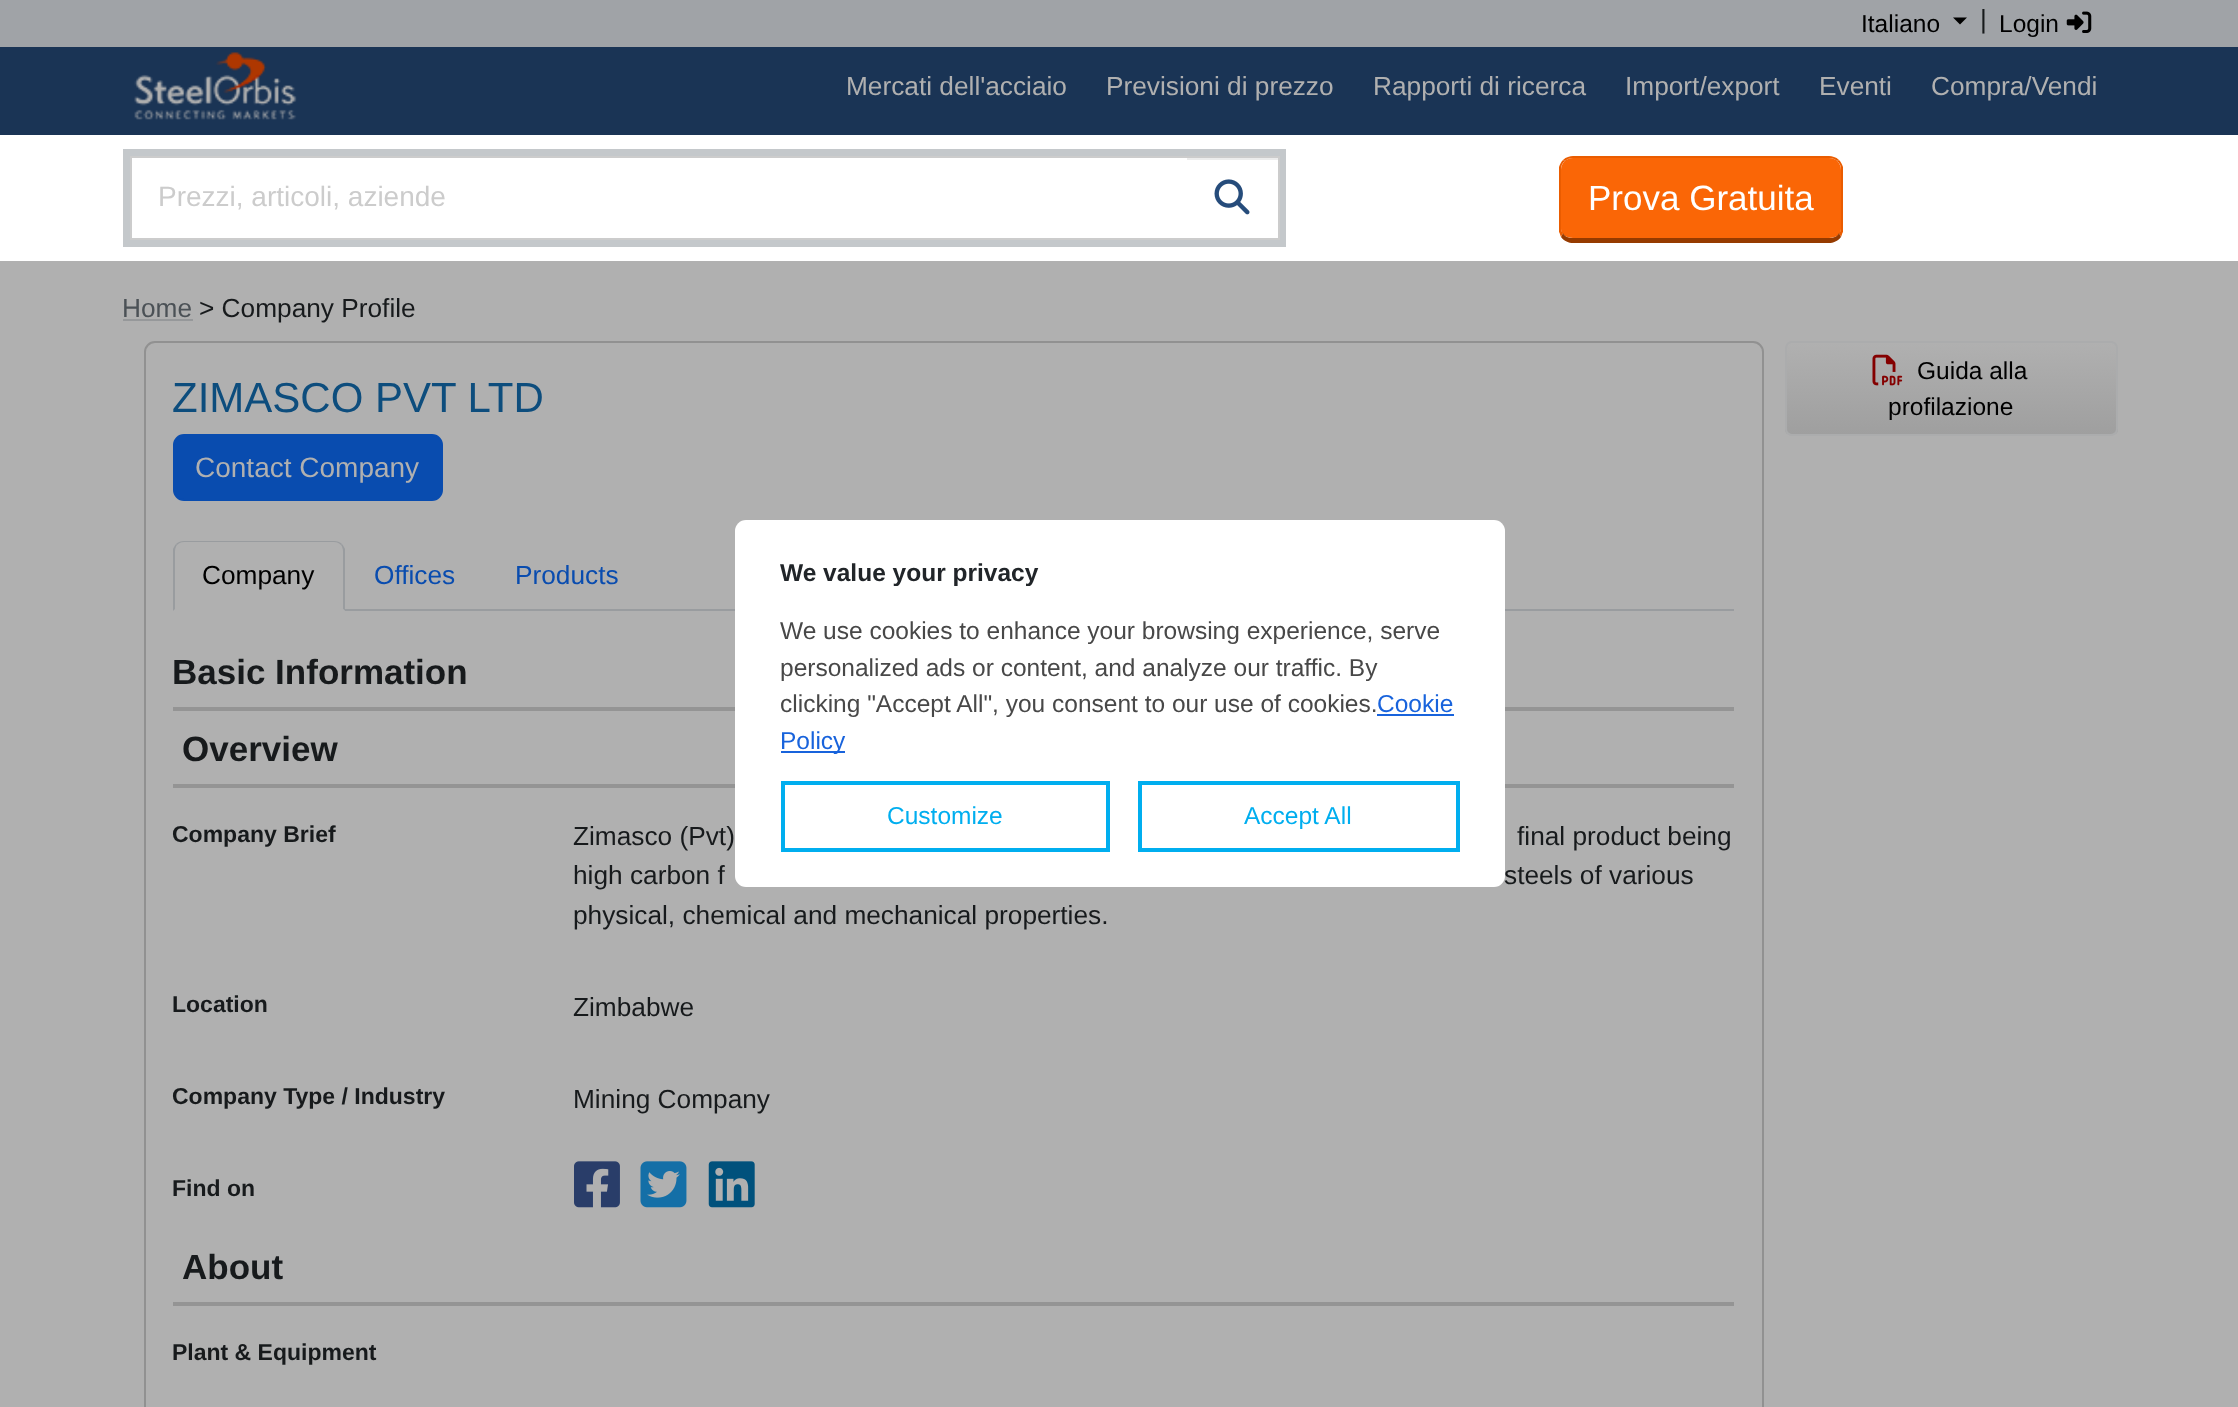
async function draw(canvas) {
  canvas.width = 2238;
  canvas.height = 1407;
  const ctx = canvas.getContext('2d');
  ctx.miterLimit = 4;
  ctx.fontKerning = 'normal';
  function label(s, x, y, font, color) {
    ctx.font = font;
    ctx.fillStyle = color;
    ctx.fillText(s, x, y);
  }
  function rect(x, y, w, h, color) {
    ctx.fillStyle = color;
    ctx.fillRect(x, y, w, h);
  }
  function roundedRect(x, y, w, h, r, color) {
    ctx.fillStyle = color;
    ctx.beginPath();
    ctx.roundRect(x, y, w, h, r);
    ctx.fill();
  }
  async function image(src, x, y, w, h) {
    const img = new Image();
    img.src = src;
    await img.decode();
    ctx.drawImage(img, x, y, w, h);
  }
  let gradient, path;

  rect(0, 0, 2238, 1407, '#b0b0b0');
  rect(0, 0, 2238, 47, '#a0a3a7');
  label('Italiano', 1861, 32, '24.5px Liberation Sans', '#000');
  path = new Path2D('M1953 17.5H1967L1960 24.5Z');
  ctx.fill(path);
  label('|', 1980, 28, '26.25px Liberation Sans', '#171a1c');
  label('Login', 1999, 32, '24.5px Liberation Sans', '#000');
  await image('assets/img1.png', 2066, 11, 26, 22);
  rect(0, 47, 2238, 88, '#1a3455');
  await image('assets/img2.png', 134, 52, 163, 68);
  label('Mercati dell\'acciaio', 846, 95, '26.25px Liberation Sans', '#b0b0b0');
  label('Previsioni di prezzo', 1106, 95, '26.25px Liberation Sans', '#b0b0b0');
  label('Rapporti di ricerca', 1373, 95, '26.25px Liberation Sans', '#b0b0b0');
  label('Import/export', 1625, 95, '26.25px Liberation Sans', '#b0b0b0');
  label('Eventi', 1819, 95, '26.25px Liberation Sans', '#b0b0b0');
  label('Compra/Vendi', 1931, 95, '26.25px Liberation Sans', '#b0b0b0');
  rect(0, 135, 2238, 126, '#fff');
  ctx.strokeStyle = '#c4c8cb';
  ctx.lineWidth = 7;
  ctx.strokeRect(126.5, 152.5, 1156, 91);
  ctx.strokeStyle = '#ccc';
  ctx.lineWidth = 2;
  ctx.strokeRect(131, 157, 1147, 82);
  label('Prezzi, articoli, aziende', 158, 206, '28px Liberation Sans', '#ccc');
  rect(1277, 160, 1, 78, '#fff');
  rect(1187, 158, 91, 2, '#ececec');
  rect(1279, 156, 1, 84, '#ccc');
  await image('assets/img3.png', 1214, 179, 36, 36);
  ctx.fillStyle = '#fa6606';
  path = new Path2D('M1573 158H1829C1836 158 1841 163 1841 170V229C1841 234 1836 238 1829 238H1573C1566 238 1561 234 1561 229V170C1561 163 1566 158 1573 158Z');
  ctx.fill(path);
  ctx.fillStyle = '#ea5c00';
  path = new Path2D('M1573 156C1570 156 1566 157 1563 160L1565 161C1567 159 1570 158 1573 158H1829C1832 158 1835 159 1837 161L1839 160C1836 157 1832 156 1829 156Z');
  ctx.fill(path);
  path = new Path2D('M1839 160C1841 162 1842 164 1843 167V232C1842 233 1842 235 1841 237L1839 233C1840 232 1841 231 1841 229V170C1841 166 1840 163 1837 161Z');
  ctx.fill(path);
  ctx.fillStyle = '#963b00';
  path = new Path2D('M1841 237C1838 241 1833 243 1829 243H1573C1569 243 1564 241 1561 237L1563 233C1564 236 1568 238 1573 238H1829C1834 238 1838 236 1839 233Z');
  ctx.fill(path);
  ctx.fillStyle = '#ea5c00';
  path = new Path2D('M1559 167C1560 164 1561 162 1563 160L1565 161C1562 163 1561 166 1561 170V229C1561 231 1562 232 1563 233L1561 237C1560 235 1560 233 1559 232Z');
  ctx.fill(path);
  label('Prova Gratuita', 1588, 210, '35px Liberation Sans', '#fff');
  label('Home', 122, 317, '26.25px Liberation Sans', '#4b5156');
  rect(123, 319, 70, 2, '#96989a');
  label('> Company Profile', 199, 317, '26.25px Liberation Sans', '#171a1c');
  ctx.beginPath();
  ctx.roundRect(145, 342, 1618, 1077, 10);
  ctx.strokeStyle = '#919191';
  ctx.stroke();
  label('ZIMASCO PVT LTD', 172, 412, '42px Liberation Sans', '#0d4d7d');
  ctx.fillStyle = '#094caf';
  ctx.beginPath();
  ctx.roundRect(174, 435, 268, 65, 10);
  ctx.fill();
  ctx.strokeStyle = '#094caf';
  ctx.stroke();
  label('Contact Company', 195, 477, '28px Liberation Sans', '#b0b0b0');
  rect(345, 609, 1389, 2, '#999c9f');
  path = new Path2D('M184 541C181 541 178 542 176 544L177 545C179 543 181 542 184 542H334C337 542 339 543 341 545L342 544C340 542 337 541 334 541Z');
  ctx.fill(path);
  path = new Path2D('M342 544C343 545 344 547 345 549V611L343 609V551C343 549 342 546 341 545Z');
  ctx.fill(path);
  ctx.fillStyle = '#b0b0b0';
  path = new Path2D('M345 611L343 609H175L173 611Z');
  ctx.fill(path);
  ctx.fillStyle = '#999c9f';
  path = new Path2D('M173 611L175 609V551C175 549 176 546 177 545L176 544C175 545 174 547 173 549Z');
  ctx.fill(path);
  label('Company', 202, 584, '26.25px Liberation Sans', '#000');
  label('Offices', 374, 584, '26.25px Liberation Sans', '#094caf');
  label('Products', 515, 584, '26.25px Liberation Sans', '#094caf');
  label('Basic Information', 172, 684, 'bold 35px Liberation Sans', '#171a1c');
  rect(173, 707, 1561, 4, '#949494');
  label('Overview', 182, 761, 'bold 35px Liberation Sans', '#171a1c');
  rect(173, 784, 1561, 4, '#949494');
  label('Company Brief', 172, 842, 'bold 23px Liberation Sans', '#171a1c');
  label('Zimasco (Pvt)', 573, 845, '26.25px Liberation Sans', '#171a1c');
  label('final product being', 1517, 845, '26.25px Liberation Sans', '#171a1c');
  label('high carbon f', 573, 884, '26.25px Liberation Sans', '#171a1c');
  label('steels of various', 1504, 884, '26.25px Liberation Sans', '#171a1c');
  label('physical, chemical and mechanical properties.', 573, 924, '26.25px Liberation Sans', '#171a1c');
  label('Location', 172, 1012, 'bold 23px Liberation Sans', '#171a1c');
  label('Zimbabwe', 573, 1016, '26.25px Liberation Sans', '#171a1c');
  label('Company Type / Industry', 172, 1104, 'bold 23px Liberation Sans', '#171a1c');
  label('Mining Company', 573, 1108, '26.25px Liberation Sans', '#171a1c');
  label('Find on', 172, 1196, 'bold 23px Liberation Sans', '#171a1c');
  await image('assets/img4.png', 574, 1161, 46, 47);
  await image('assets/img5.png', 640, 1161, 47, 47);
  await image('assets/img6.png', 708, 1161, 47, 47);
  label('About', 182, 1279, 'bold 35px Liberation Sans', '#171a1c');
  rect(173, 1302, 1561, 4, '#949494');
  label('Plant & Equipment', 172, 1360, 'bold 23px Liberation Sans', '#171a1c');
  ctx.save();
  ctx.beginPath();
  ctx.roundRect(1785, 341, 333, 95, 7);
  ctx.clip();
  gradient = ctx.createLinearGradient(1951, 343, 1951, 434);
  gradient.addColorStop(0, '#b0b0b0');
  gradient.addColorStop(1, '#9f9f9f');
  ctx.fillStyle = gradient;
  ctx.fillRect(1785, 343, 333, 91);
  ctx.restore();
  ctx.beginPath();
  ctx.roundRect(1786, 342, 331, 93, 6);
  ctx.strokeStyle = '#abacad';
  ctx.stroke();
  await image('assets/img7.png', 1872, 354, 31, 32);
  label('Guida alla', 1917, 379, '24.5px Liberation Sans', '#000');
  label('profilazione', 1888, 415, '24.5px Liberation Sans', '#000');
  roundedRect(735, 520, 770, 367, 11, '#fff');
  label('We value your privacy', 780, 581, 'bold 24.5px Liberation Sans', '#212529');
  label('We use cookies to enhance your browsing experience, serve', 780, 639, '24.5px Liberation Sans', '#484848');
  label('personalized ads or content, and analyze our traffic. By', 780, 676, '24.5px Liberation Sans', '#484848');
  label('clicking "Accept All", you consent to our use of cookies.', 780, 712, '24.5px Liberation Sans', '#484848');
  label('Cookie', 1377, 712, '24.5px Liberation Sans', '#1863dc');
  rect(1377, 714, 77, 2, '#1863dc');
  rect(781, 751, 64, 2, '#1863dc');
  label('Policy', 780, 749, '24.5px Liberation Sans', '#1863dc');
  ctx.strokeStyle = '#00aeef';
  ctx.lineWidth = 4;
  ctx.strokeRect(783, 783, 325, 67);
  label('Customize', 887, 824, '24.5px Liberation Sans', '#00aeef');
  ctx.strokeRect(1140, 783, 318, 67);
  label('Accept All', 1244, 824, '24.5px Liberation Sans', '#00aeef');
}

draw(document.querySelector('canvas'));
